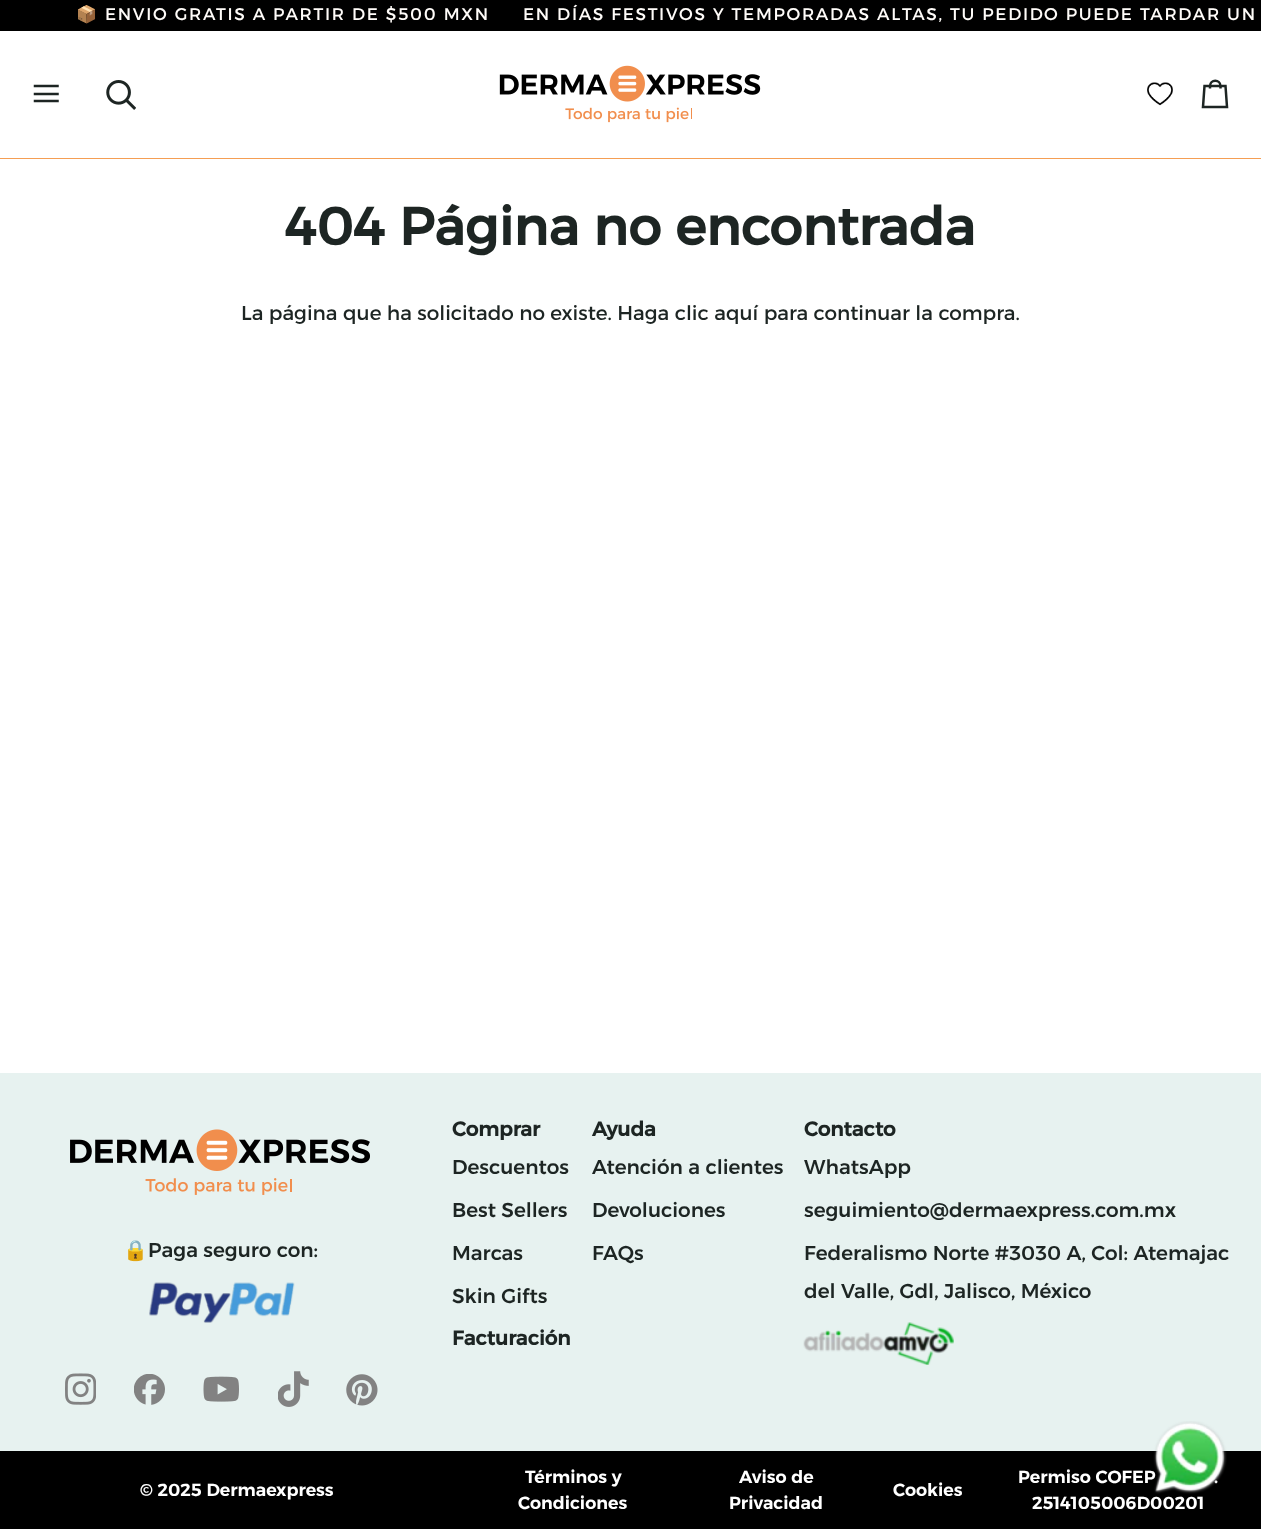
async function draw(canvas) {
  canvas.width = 1261;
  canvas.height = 1535;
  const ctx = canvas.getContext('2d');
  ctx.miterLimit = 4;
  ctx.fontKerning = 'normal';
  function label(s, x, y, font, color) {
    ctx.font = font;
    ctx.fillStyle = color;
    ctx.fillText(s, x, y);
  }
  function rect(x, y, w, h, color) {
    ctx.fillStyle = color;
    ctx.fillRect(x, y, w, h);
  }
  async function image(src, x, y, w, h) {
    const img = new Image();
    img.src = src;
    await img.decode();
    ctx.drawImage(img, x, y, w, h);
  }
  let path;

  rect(0, 0, 1261, 1535, '#fff');
  rect(0, 0, 1261, 31, '#000');
  ctx.letterSpacing = '1.7px';
  label('📦', 76, 20, '16.9px Noto Color Emoji', '#fffcf9');
  label('ENVIO GRATIS A PARTIR DE $500 MXN', 105, 20, '16.9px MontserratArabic', '#fffcf9');
  label('EN DÍAS FESTIVOS Y TEMPORADAS ALTAS, TU PEDIDO PUEDE TARDAR UN', 523, 20, '16.9px MontserratArabic', '#fffcf9');
  rect(0, 158, 1261, 1, '#f59e54');
  path = new Path2D('M57.5 86H35M57.5 94H35M57.5 101H35');
  ctx.strokeStyle = '#1d2523';
  ctx.lineWidth = 2.5;
  ctx.lineCap = 'square';
  ctx.stroke(path);
  await image('assets/img1.png', 106, 80, 30, 30);
  await image('assets/img2.png', 499, 65, 262, 58);
  await image('assets/img3.png', 1147, 82, 26, 24);
  path = new Path2D('M1220.5 88.5V86H1225.5L1227 107H1203L1204.5 86H1210C1210 79 1220.5 79 1220.5 86H1210V88.5');
  ctx.lineCap = 'butt';
  ctx.stroke(path);
  ctx.letterSpacing = '0px';
  label('404 Página no encontrada', 285, 245, 'bold 52.5px "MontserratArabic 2"', '#1d2523');
  label('La página que ha solicitado no existe. Haga clic aquí para continuar la compra.', 241, 320, '20px MontserratArabic', '#1d2523');
  rect(0, 1073, 1261, 378, '#e7f2f0');
  await image('assets/img4.png', 70, 1129, 300, 66);
  label('🔒', 123, 1257, '20px Noto Color Emoji', '#1d2523');
  label('Paga seguro con:', 148, 1257, '500 20px MontserratArabic', '#1d2523');
  await image('assets/img5.png', 149, 1282, 146, 41);
  await image('assets/img6.png', 65, 1373, 31, 32);
  await image('assets/img7.png', 134, 1374, 31, 31);
  await image('assets/img8.png', 203, 1376, 36, 26);
  await image('assets/img9.png', 278, 1371, 31, 36);
  await image('assets/img10.png', 346, 1374, 32, 32);
  label('Comprar', 452, 1136, 'bold 20px MontserratArabic', '#1d2523');
  label('Descuentos', 452, 1174, '500 20px MontserratArabic', '#1d2523');
  label('Best Sellers', 452, 1217, '500 20px MontserratArabic', '#1d2523');
  label('Marcas', 452, 1260, '500 20px MontserratArabic', '#1d2523');
  label('Skin Gifts', 452, 1303, '500 20px MontserratArabic', '#1d2523');
  label('Facturación', 452, 1345, 'bold 20px MontserratArabic', '#1d2523');
  label('Ayuda', 592, 1136, 'bold 20px MontserratArabic', '#1d2523');
  label('Atención a clientes', 592, 1174, '500 20px MontserratArabic', '#1d2523');
  label('Devoluciones', 592, 1217, '500 20px MontserratArabic', '#1d2523');
  label('FAQs', 592, 1260, '500 20px MontserratArabic', '#1d2523');
  label('Contacto', 804, 1136, 'bold 20px MontserratArabic', '#1d2523');
  label('WhatsApp', 804, 1174, '500 20px MontserratArabic', '#1d2523');
  label('seguimiento@dermaexpress.com.mx', 804, 1217, '500 20px MontserratArabic', '#1d2523');
  label('Federalismo Norte #3030 A, Col: Atemajac', 804, 1260, '500 20px MontserratArabic', '#1d2523');
  label('del Valle, Gdl, Jalisco, México', 804, 1298, '500 20px MontserratArabic', '#1d2523');
  await image('assets/img11.png', 803, 1322, 151, 43);
  rect(0, 1451, 1261, 78, '#000');
  label('© 2025 Dermaexpress', 140, 1496, '600 17.5px MontserratArabic', '#fff');
  label('Términos y', 525, 1483, '600 17.5px MontserratArabic', '#fff');
  label('Condiciones', 518, 1509, '600 17.5px MontserratArabic', '#fff');
  label('Aviso de', 739, 1483, '600 17.5px MontserratArabic', '#fff');
  label('Privacidad', 729, 1509, '600 17.5px MontserratArabic', '#fff');
  label('Cookies', 893, 1496, '600 17.5px MontserratArabic', '#fff');
  label('Permiso COFEP', 1018, 1483, '600 17.5px MontserratArabic', '#fff');
  label('.', 1214, 1483, '600 17.5px MontserratArabic', '#fff');
  label('2514105006D00201', 1032, 1509, '600 17.5px MontserratArabic', '#fff');
  await image('assets/img12.png', 1153, 1421, 74, 73);
}

draw(document.querySelector('canvas'));
